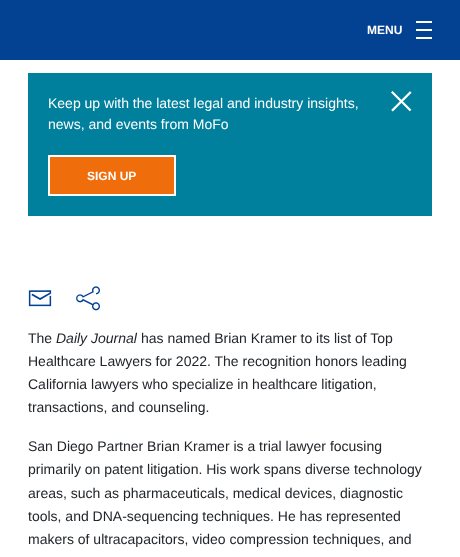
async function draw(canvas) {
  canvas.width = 460;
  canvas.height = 557;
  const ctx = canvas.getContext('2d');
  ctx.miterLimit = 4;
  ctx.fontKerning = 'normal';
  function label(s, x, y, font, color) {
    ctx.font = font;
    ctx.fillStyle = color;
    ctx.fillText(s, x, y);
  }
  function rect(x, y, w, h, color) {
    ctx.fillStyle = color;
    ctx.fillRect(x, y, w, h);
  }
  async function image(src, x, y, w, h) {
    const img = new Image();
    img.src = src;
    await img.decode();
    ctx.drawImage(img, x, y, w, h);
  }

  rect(0, 0, 460, 557, '#fff');
  rect(0, 0, 460, 60, '#034193');
  label('MENU', 367, 34, 'bold 12px Liberation Sans', '#fff');
  rect(416, 21, 16, 2, '#fff');
  rect(416, 29, 16, 2, '#fff');
  rect(416, 37, 16, 2, '#fff');
  rect(28, 73, 404, 143, '#00809d');
  label('Keep up with the latest legal and industry insights,', 48, 108, '14px Liberation Sans', '#fff');
  label('news, and events from MoFo', 48, 129, '14px Liberation Sans', '#fff');
  await image('assets/img1.png', 391, 91, 21, 21);
  ctx.fillStyle = '#ef6e0b';
  ctx.beginPath();
  ctx.rect(49, 156, 126, 39);
  ctx.fill();
  ctx.strokeStyle = '#fff';
  ctx.lineWidth = 2;
  ctx.stroke();
  label('SIGN UP', 87, 180, 'bold 12px Liberation Sans', '#fff');
  await image('assets/img2.png', 28, 290, 24, 17);
  await image('assets/img3.png', 76, 286, 24, 25);
  label('The', 28, 343, '14px Liberation Sans', '#212529');
  label('Daily Journal', 56, 343, 'italic 14px Liberation Sans', '#212529');
  label('has named Brian Kramer to its list of Top', 141, 343, '14px Liberation Sans', '#212529');
  label('Healthcare Lawyers for 2022. The recognition honors leading', 28, 366, '14px Liberation Sans', '#212529');
  label('California lawyers who specialize in healthcare litigation,', 28, 389, '14px Liberation Sans', '#212529');
  label('transactions, and counseling.', 28, 412, '14px Liberation Sans', '#212529');
  label('San Diego Partner Brian Kramer is a trial lawyer focusing', 28, 451, '14px Liberation Sans', '#212529');
  label('primarily on patent litigation. His work spans diverse technology', 28, 474, '14px Liberation Sans', '#212529');
  label('areas, such as pharmaceuticals, medical devices, diagnostic', 28, 498, '14px Liberation Sans', '#212529');
  label('tools, and DNA-sequencing techniques. He has represented', 28, 521, '14px Liberation Sans', '#212529');
  label('makers of ultracapacitors, video compression techniques, and', 28, 544, '14px Liberation Sans', '#212529');
}

draw(document.querySelector('canvas'));
